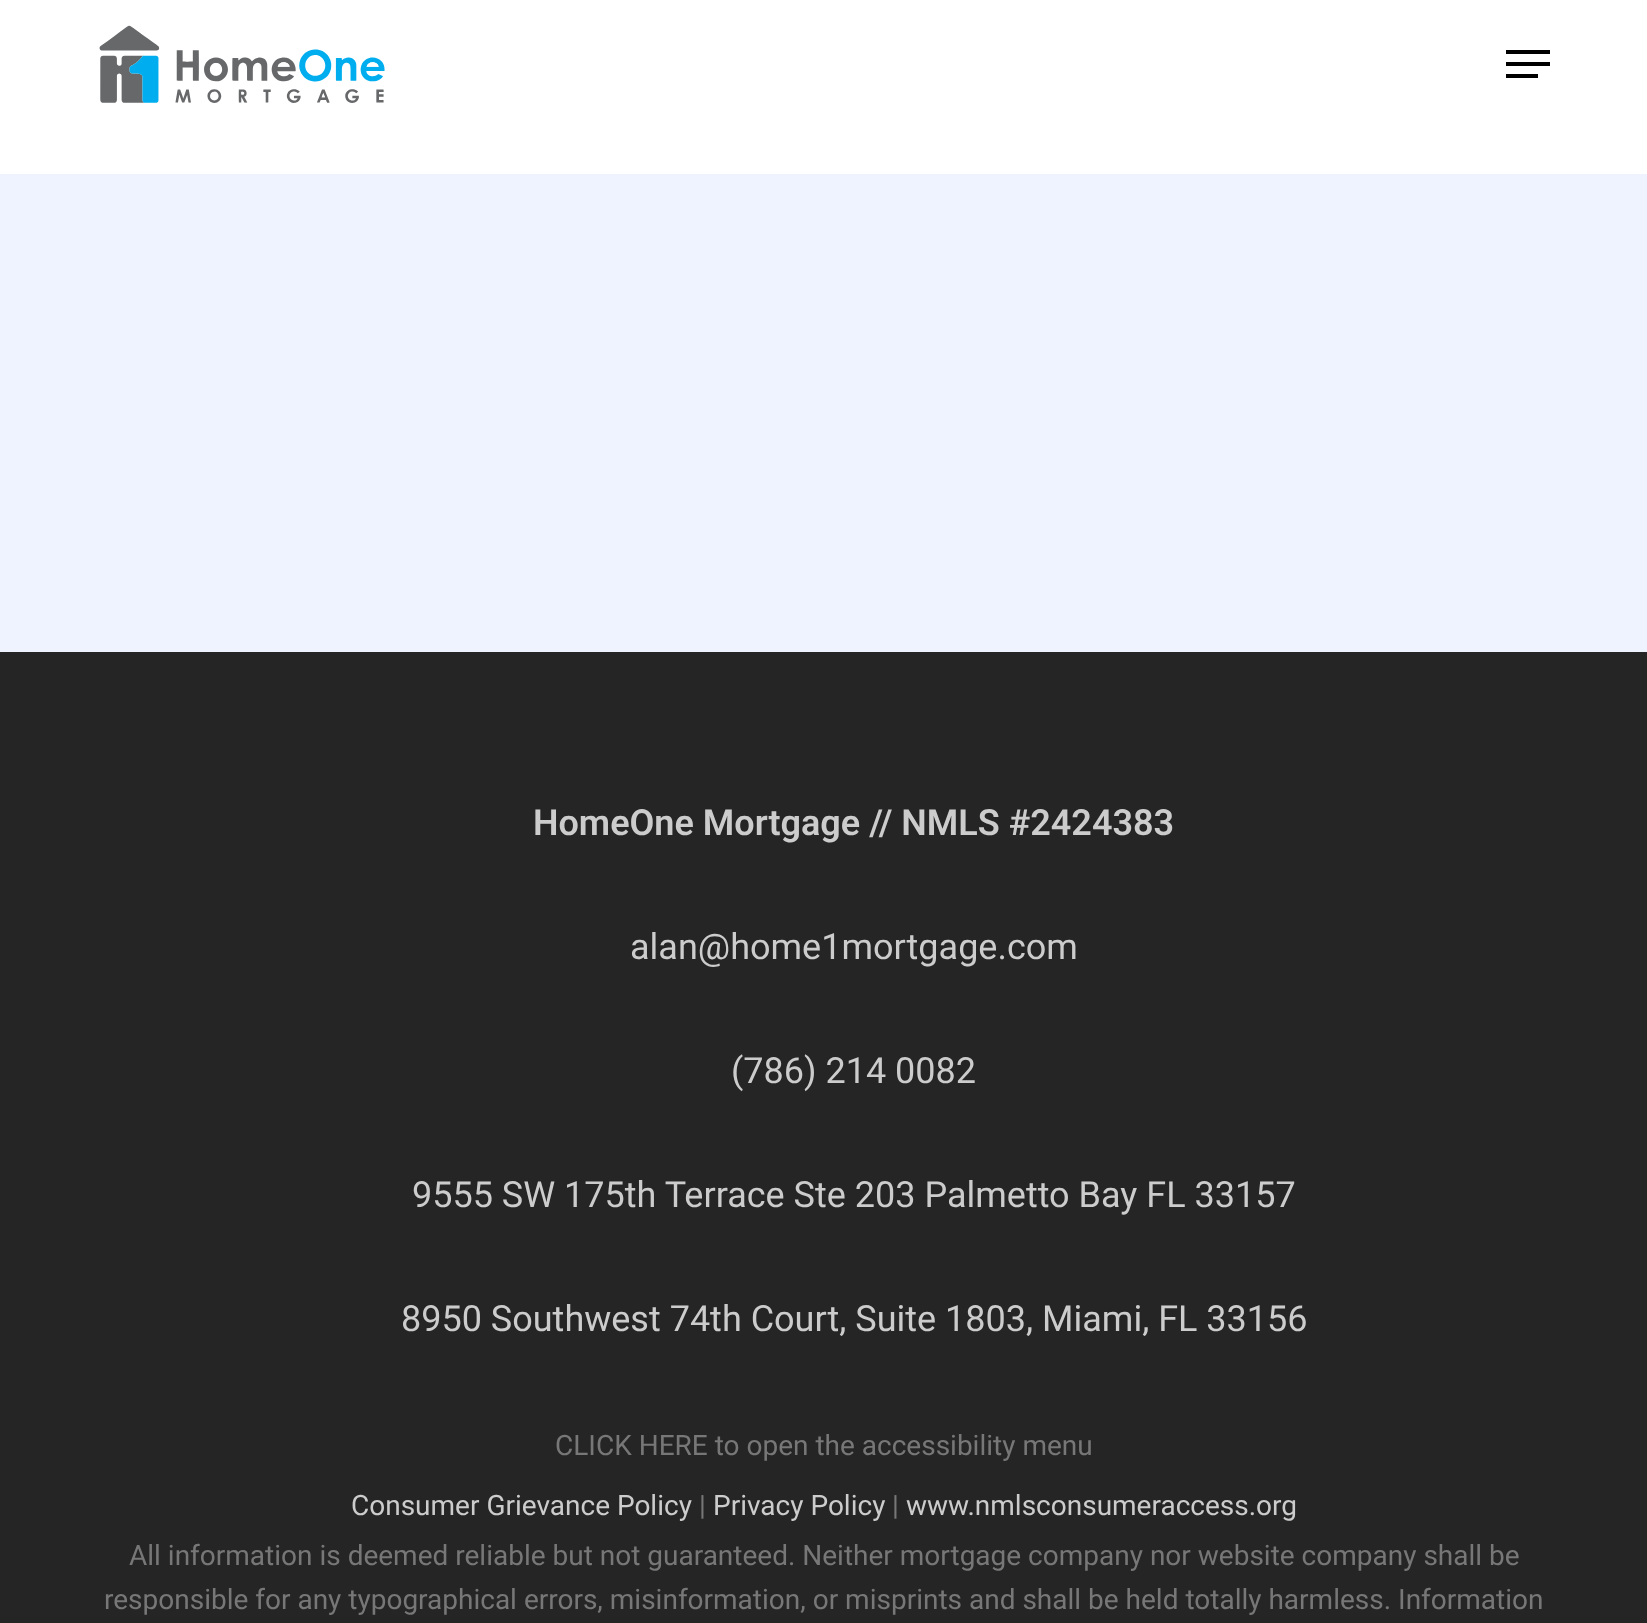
async function draw(canvas) {
  canvas.width = 1647;
  canvas.height = 1623;
  const ctx = canvas.getContext('2d');
  ctx.miterLimit = 4;
  ctx.fontKerning = 'normal';
  function label(s, x, y, font, color) {
    ctx.font = font;
    ctx.fillStyle = color;
    ctx.fillText(s, x, y);
  }
  function rect(x, y, w, h, color) {
    ctx.fillStyle = color;
    ctx.fillRect(x, y, w, h);
  }
  async function image(src, x, y, w, h) {
    const img = new Image();
    img.src = src;
    await img.decode();
    ctx.drawImage(img, x, y, w, h);
  }

  rect(0, 0, 1647, 1623, '#fff');
  await image('assets/img1.png', 99, 25, 286, 78);
  rect(1506, 50, 44, 4, '#000');
  rect(1506, 74, 32, 4, '#000');
  rect(1506, 62, 44, 4, '#000');
  rect(0, 174, 1647, 478, '#eff3ff');
  rect(0, 652, 1647, 971, '#252525');
  label('HomeOne Mortgage // NMLS #2424383', 533, 835, '600 36px Roboto', '#ccc');
  label('alan@home1mortgage.com', 630, 959, '36px Roboto', '#ccc');
  label('(786) 214 0082', 731, 1083, '36px Roboto', '#ccc');
  label('9555 SW 175th Terrace Ste 203 Palmetto Bay FL 33157', 412, 1207, '36px Roboto', '#ccc');
  label('8950 Southwest 74th Court, Suite 1803, Miami, FL 33156', 401, 1331, '36px Roboto', '#ccc');
  label('CLICK HERE to open the accessibility menu', 555, 1455, '28px Roboto', '#777');
  label('Consumer Grievance Policy', 351, 1515, '28px Roboto', '#ccc');
  label('|', 699, 1515, '28px Roboto', '#777');
  label('Privacy Policy', 713, 1515, '28px Roboto', '#ccc');
  label('|', 892, 1515, '28px Roboto', '#777');
  label('www.nmlsconsumeraccess.org', 906, 1515, '28px Roboto', '#ccc');
  label('All information is deemed reliable but not guaranteed. Neither mortgage company nor website company shall be', 129, 1565, '28px Roboto', '#777');
  label('responsible for any typographical errors, misinformation, or misprints and shall be held totally harmless. Information', 104, 1609, '28px Roboto', '#777');
}

draw(document.querySelector('canvas'));
